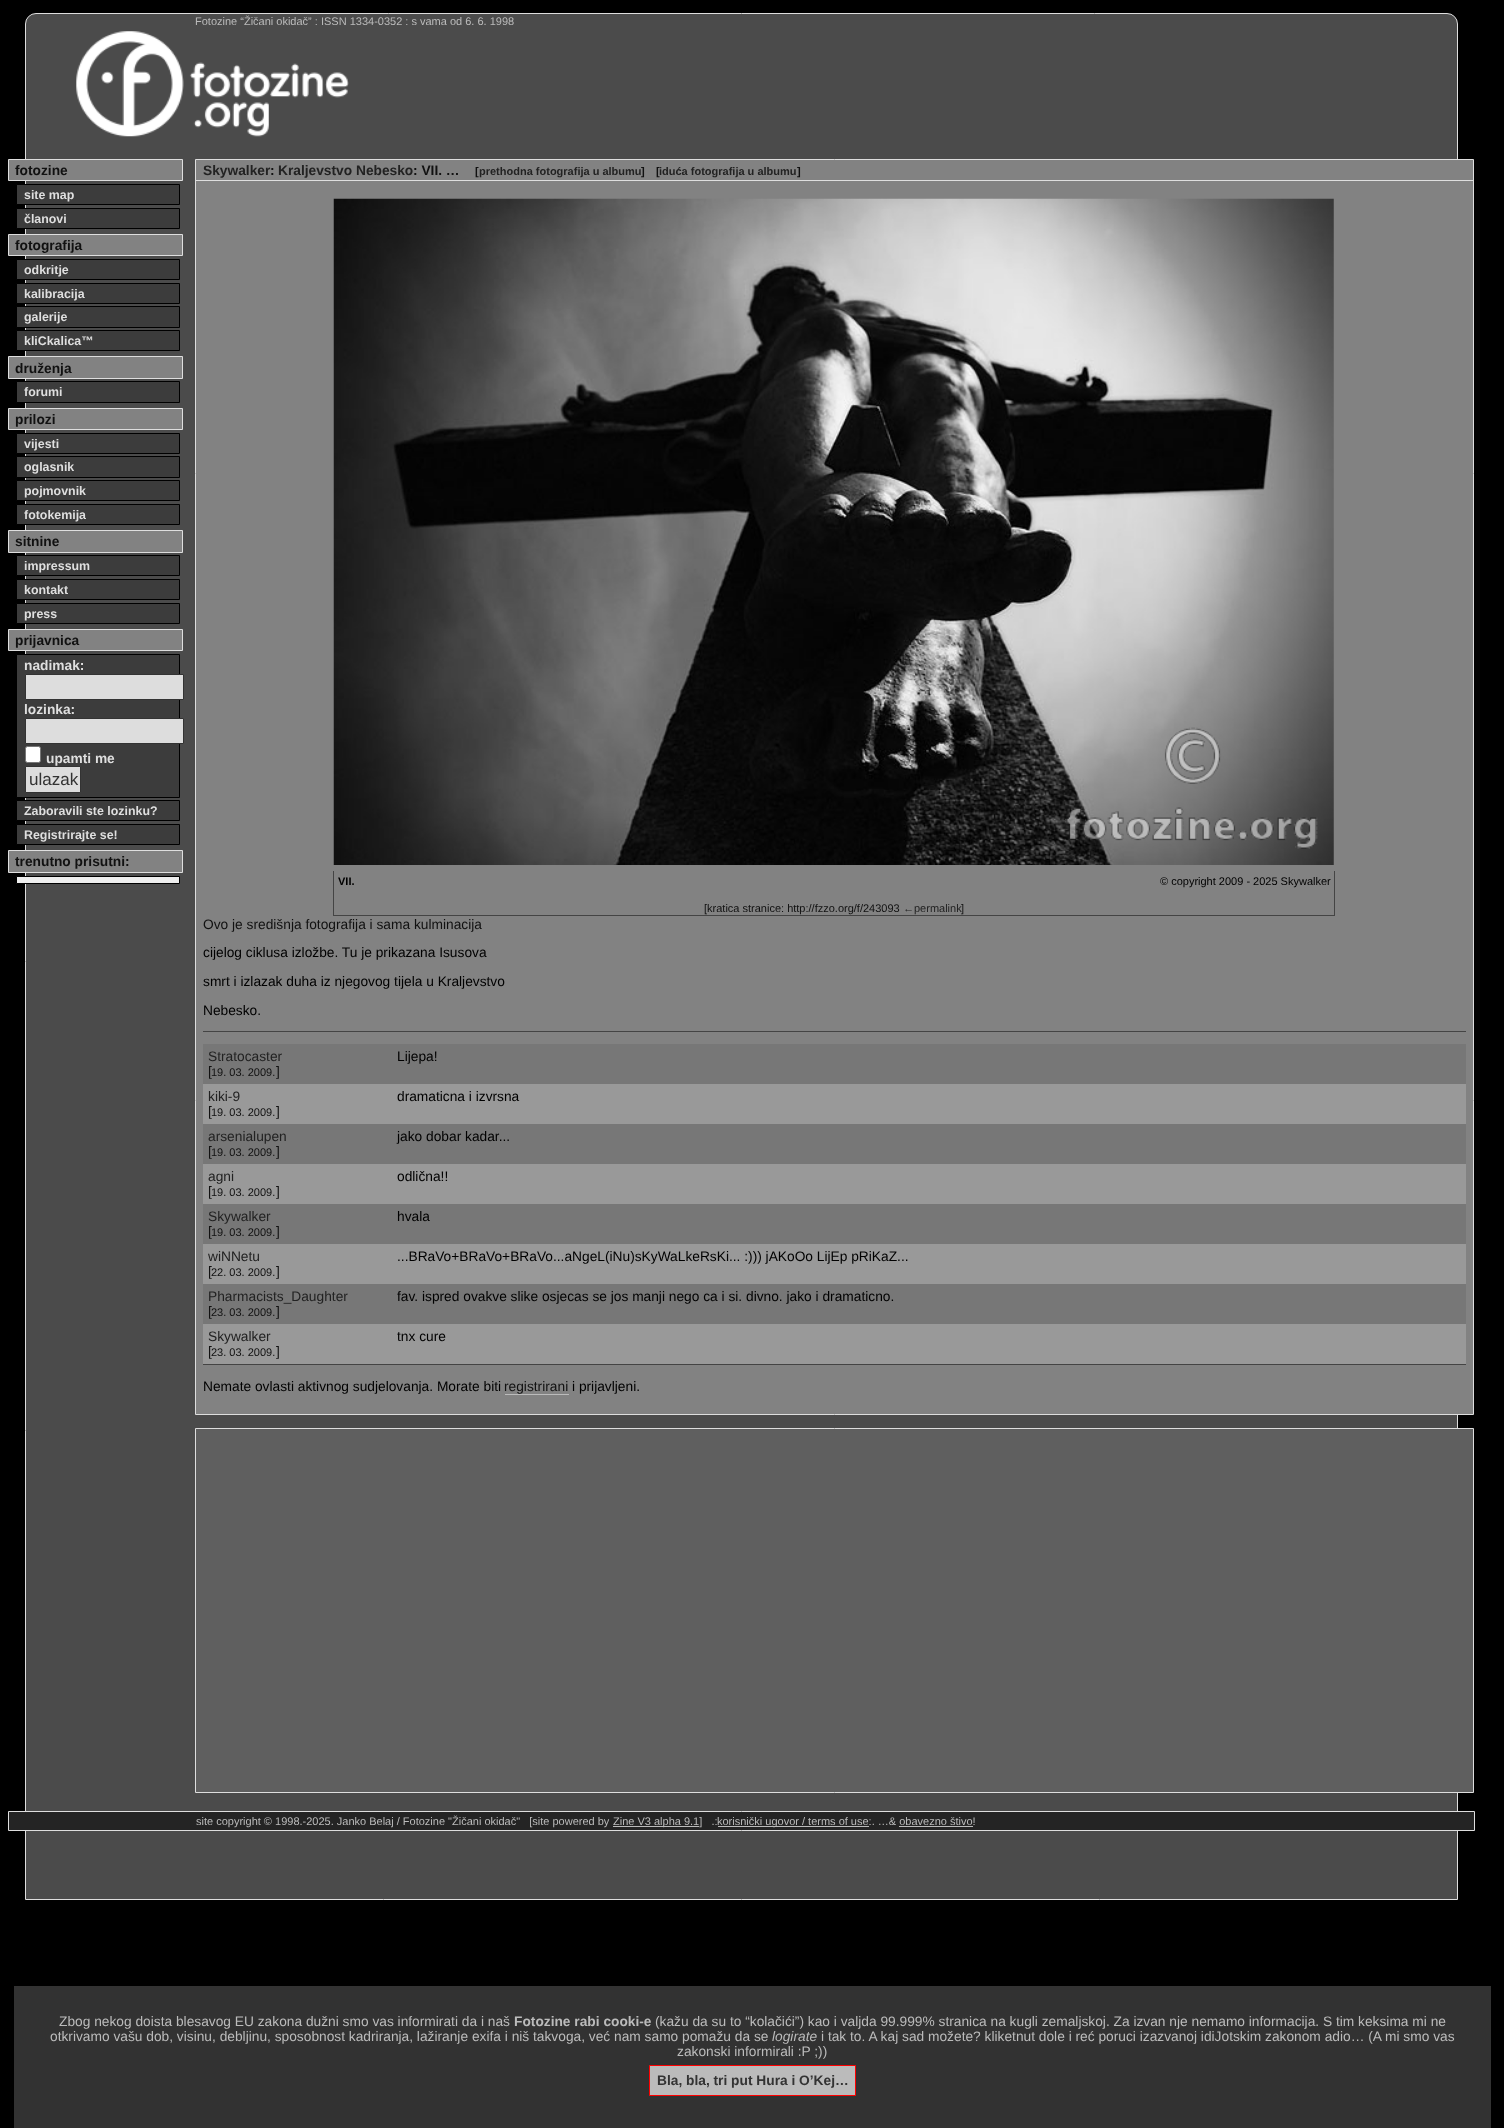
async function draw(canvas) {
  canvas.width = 1504;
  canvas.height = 2128;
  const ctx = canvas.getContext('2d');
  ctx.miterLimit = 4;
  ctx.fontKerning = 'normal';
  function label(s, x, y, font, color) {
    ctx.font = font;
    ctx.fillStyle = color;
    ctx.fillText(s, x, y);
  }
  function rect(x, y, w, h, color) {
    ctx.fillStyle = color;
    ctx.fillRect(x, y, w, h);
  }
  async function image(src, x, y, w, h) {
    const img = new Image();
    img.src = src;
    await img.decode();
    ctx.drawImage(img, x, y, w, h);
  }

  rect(0, 0, 1504, 2128, '#000');
  ctx.fillStyle = '#4b4b4b';
  ctx.beginPath();
  ctx.roundRect(25.5, 13.5, 1432, 1886, [10.5, 10.5, 0, 0]);
  ctx.fill();
  ctx.strokeStyle = '#dedede';
  ctx.stroke();
  label('Fotozine “Žičani okidač” : ISSN 1334-0352 : s vama od 6. 6. 1998', 195, 25, '11px Liberation Sans', '#bbb');
  await image('assets/img1.png', 76, 31, 273, 106);
  ctx.fillStyle = '#828282';
  ctx.beginPath();
  ctx.rect(8.5, 159.5, 174, 21);
  ctx.fill();
  ctx.stroke();
  label('fotozine', 15, 175, 'bold 13.75px Liberation Sans', '#111');
  ctx.fillStyle = '#3c3c3c';
  ctx.beginPath();
  ctx.rect(16.5, 184.5, 163, 20);
  ctx.fill();
  ctx.strokeStyle = '#000';
  ctx.stroke();
  label('site map', 24, 199, 'bold 12.4px Liberation Sans', '#dfdfdf');
  ctx.fillStyle = '#3c3c3c';
  ctx.beginPath();
  ctx.rect(16.5, 208.5, 163, 20);
  ctx.fill();
  ctx.stroke();
  label('članovi', 24, 223, 'bold 12.4px Liberation Sans', '#dfdfdf');
  ctx.fillStyle = '#828282';
  ctx.beginPath();
  ctx.rect(8.5, 234.5, 174, 21);
  ctx.fill();
  ctx.strokeStyle = '#dedede';
  ctx.stroke();
  label('fotografija', 15, 250, 'bold 13.75px Liberation Sans', '#111');
  ctx.fillStyle = '#3c3c3c';
  ctx.beginPath();
  ctx.rect(16.5, 259.5, 163, 20);
  ctx.fill();
  ctx.strokeStyle = '#000';
  ctx.stroke();
  label('odkritje', 24, 274, 'bold 12.4px Liberation Sans', '#dfdfdf');
  ctx.fillStyle = '#3c3c3c';
  ctx.beginPath();
  ctx.rect(16.5, 283.5, 163, 20);
  ctx.fill();
  ctx.stroke();
  label('kalibracija', 24, 298, 'bold 12.4px Liberation Sans', '#dfdfdf');
  ctx.fillStyle = '#3c3c3c';
  ctx.beginPath();
  ctx.rect(16.5, 306.5, 163, 21);
  ctx.fill();
  ctx.stroke();
  label('galerije', 24, 321, 'bold 12.4px Liberation Sans', '#dfdfdf');
  ctx.fillStyle = '#3c3c3c';
  ctx.beginPath();
  ctx.rect(16.5, 330.5, 163, 20);
  ctx.fill();
  ctx.stroke();
  label('kliCkalica™', 24, 345, 'bold 12.4px Liberation Sans', '#dfdfdf');
  ctx.fillStyle = '#828282';
  ctx.beginPath();
  ctx.rect(8.5, 356.5, 174, 22);
  ctx.fill();
  ctx.strokeStyle = '#dedede';
  ctx.stroke();
  label('druženja', 15, 373, 'bold 13.75px Liberation Sans', '#111');
  ctx.fillStyle = '#3c3c3c';
  ctx.beginPath();
  ctx.rect(16.5, 381.5, 163, 21);
  ctx.fill();
  ctx.strokeStyle = '#000';
  ctx.stroke();
  label('forumi', 24, 396, 'bold 12.4px Liberation Sans', '#dfdfdf');
  ctx.fillStyle = '#828282';
  ctx.beginPath();
  ctx.rect(8.5, 408.5, 174, 21);
  ctx.fill();
  ctx.strokeStyle = '#dedede';
  ctx.stroke();
  label('prilozi', 15, 424, 'bold 13.75px Liberation Sans', '#111');
  ctx.fillStyle = '#3c3c3c';
  ctx.beginPath();
  ctx.rect(16.5, 433.5, 163, 20);
  ctx.fill();
  ctx.strokeStyle = '#000';
  ctx.stroke();
  label('vijesti', 24, 448, 'bold 12.4px Liberation Sans', '#dfdfdf');
  ctx.fillStyle = '#3c3c3c';
  ctx.beginPath();
  ctx.rect(16.5, 456.5, 163, 21);
  ctx.fill();
  ctx.stroke();
  label('oglasnik', 24, 471, 'bold 12.4px Liberation Sans', '#dfdfdf');
  ctx.fillStyle = '#3c3c3c';
  ctx.beginPath();
  ctx.rect(16.5, 480.5, 163, 20);
  ctx.fill();
  ctx.stroke();
  label('pojmovnik', 24, 495, 'bold 12.4px Liberation Sans', '#dfdfdf');
  ctx.fillStyle = '#3c3c3c';
  ctx.beginPath();
  ctx.rect(16.5, 504.5, 163, 20);
  ctx.fill();
  ctx.stroke();
  label('fotokemija', 24, 519, 'bold 12.4px Liberation Sans', '#dfdfdf');
  ctx.fillStyle = '#828282';
  ctx.beginPath();
  ctx.rect(8.5, 530.5, 174, 22);
  ctx.fill();
  ctx.strokeStyle = '#dedede';
  ctx.stroke();
  label('sitnine', 15, 546, 'bold 13.75px Liberation Sans', '#111');
  ctx.fillStyle = '#3c3c3c';
  ctx.beginPath();
  ctx.rect(16.5, 555.5, 163, 20);
  ctx.fill();
  ctx.strokeStyle = '#000';
  ctx.stroke();
  label('impressum', 24, 570, 'bold 12.4px Liberation Sans', '#dfdfdf');
  ctx.fillStyle = '#3c3c3c';
  ctx.beginPath();
  ctx.rect(16.5, 579.5, 163, 20);
  ctx.fill();
  ctx.stroke();
  label('kontakt', 24, 594, 'bold 12.4px Liberation Sans', '#dfdfdf');
  ctx.fillStyle = '#3c3c3c';
  ctx.beginPath();
  ctx.rect(16.5, 603.5, 163, 20);
  ctx.fill();
  ctx.stroke();
  label('press', 24, 618, 'bold 12.4px Liberation Sans', '#dfdfdf');
  ctx.fillStyle = '#828282';
  ctx.beginPath();
  ctx.rect(8.5, 629.5, 174, 21);
  ctx.fill();
  ctx.strokeStyle = '#dedede';
  ctx.stroke();
  label('prijavnica', 15, 645, 'bold 13.75px Liberation Sans', '#111');
  ctx.fillStyle = '#3c3c3c';
  ctx.beginPath();
  ctx.rect(16.5, 654.5, 163, 143);
  ctx.fill();
  ctx.strokeStyle = '#000';
  ctx.stroke();
  label('nadimak:', 24, 670, 'bold 13.75px Liberation Sans', '#dfdfdf');
  ctx.fillStyle = '#ddd';
  ctx.beginPath();
  ctx.rect(25.5, 674.5, 158, 25);
  ctx.fill();
  ctx.strokeStyle = '#333';
  ctx.stroke();
  label('lozinka:', 24, 714, 'bold 13.75px Liberation Sans', '#dfdfdf');
  ctx.fillStyle = '#ddd';
  ctx.beginPath();
  ctx.rect(25.5, 718.5, 158, 25);
  ctx.fill();
  ctx.stroke();
  ctx.fillStyle = '#fff';
  ctx.beginPath();
  ctx.roundRect(25.5, 746.5, 15, 16, 2);
  ctx.fill();
  ctx.strokeStyle = '#767676';
  ctx.stroke();
  label('upamti me', 46, 763, 'bold 13.75px Liberation Sans', '#dfdfdf');
  ctx.fillStyle = '#ddd';
  ctx.beginPath();
  ctx.rect(25.5, 766.5, 55, 26);
  ctx.fill();
  ctx.strokeStyle = '#333';
  ctx.stroke();
  label('ulazak', 29, 785, '17px Liberation Sans', '#333');
  ctx.fillStyle = '#3c3c3c';
  ctx.beginPath();
  ctx.rect(16.5, 800.5, 163, 20);
  ctx.fill();
  ctx.strokeStyle = '#000';
  ctx.stroke();
  label('Zaboravili ste lozinku?', 24, 815, 'bold 12.4px Liberation Sans', '#dfdfdf');
  ctx.fillStyle = '#3c3c3c';
  ctx.beginPath();
  ctx.rect(16.5, 824.5, 163, 20);
  ctx.fill();
  ctx.stroke();
  label('Registrirajte se!', 24, 839, 'bold 12.4px Liberation Sans', '#dfdfdf');
  ctx.fillStyle = '#828282';
  ctx.beginPath();
  ctx.rect(8.5, 850.5, 174, 22);
  ctx.fill();
  ctx.strokeStyle = '#dedede';
  ctx.stroke();
  label('trenutno prisutni:', 15, 866, 'bold 13.75px Liberation Sans', '#111');
  ctx.fillStyle = '#eee';
  ctx.beginPath();
  ctx.rect(16.5, 876.5, 163, 7);
  ctx.fill();
  ctx.strokeStyle = '#000';
  ctx.stroke();
  ctx.fillStyle = '#828282';
  ctx.beginPath();
  ctx.rect(195.5, 159.5, 1278, 1255);
  ctx.fill();
  ctx.strokeStyle = '#dedede';
  ctx.stroke();
  rect(196, 180, 1277, 1, '#dedede');
  label('Skywalker', 203, 175, 'bold 13.75px Liberation Sans', '#222');
  label(':', 270, 175, 'bold 13.75px Liberation Sans', '#111');
  label('Kraljevstvo Nebesko', 278, 175, 'bold 13.75px Liberation Sans', '#222');
  label(': VII. …', 413, 175, 'bold 13.75px Liberation Sans', '#111');
  label('[', 475, 175, 'bold 11px Liberation Sans', '#111');
  label('prethodna fotografija u albumu', 479, 175, 'bold 11px Liberation Sans', '#222');
  label(']', 641, 175, 'bold 11px Liberation Sans', '#111');
  label('[', 656, 175, 'bold 11px Liberation Sans', '#111');
  label('iduća fotografija u albumu', 659, 175, 'bold 11px Liberation Sans', '#222');
  label(']', 797, 175, 'bold 11px Liberation Sans', '#111');
  await image('assets/img2.png', 333, 198, 1001, 667);
  rect(1334, 871, 1, 45, '#444');
  rect(333, 915, 1002, 1, '#444');
  rect(333, 871, 1, 45, '#444');
  label('VII.', 338, 885, 'bold 11px Liberation Sans', '#000');
  label('© copyright 2009 - 2025 Skywalker', 1160, 885, '11px Liberation Sans', '#000');
  label('[kratica stranice: http://fzzo.org/f/243093', 704, 912, '11px Liberation Sans', '#111');
  label('←permalink', 903, 912, '11px Liberation Sans', '#222');
  label(']', 961, 912, '11px Liberation Sans', '#111');
  rect(203, 1031, 1263, 1, '#444');
  label('Ovo je središnja fotografija i sama kulminacija', 203, 929, '13.75px Liberation Sans', '#111');
  label('cijelog ciklusa izložbe. Tu je prikazana Isusova', 203, 957, '13.75px Liberation Sans', '#000');
  label('smrt i izlazak duha iz njegovog tijela u Kraljevstvo', 203, 986, '13.75px Liberation Sans', '#000');
  label('Nebesko.', 203, 1015, '13.75px Liberation Sans', '#000');
  rect(203, 1364, 1263, 1, '#444');
  rect(203, 1044, 1263, 40, '#777');
  label('Stratocaster', 208, 1061, '13.75px Liberation Sans', '#222');
  label('[', 208, 1076, '13.75px Liberation Sans', '#111');
  label('19. 03. 2009.', 211, 1076, '11px Liberation Sans', '#111');
  label(']', 276, 1076, '13.75px Liberation Sans', '#111');
  label('Lijepa!', 397, 1061, '13.75px Liberation Sans', '#000');
  rect(203, 1084, 1263, 40, '#999');
  label('kiki-9', 208, 1101, '13.75px Liberation Sans', '#222');
  label('[', 208, 1116, '13.75px Liberation Sans', '#111');
  label('19. 03. 2009.', 211, 1116, '11px Liberation Sans', '#111');
  label(']', 276, 1116, '13.75px Liberation Sans', '#111');
  label('dramaticna i izvrsna', 397, 1101, '13.75px Liberation Sans', '#000');
  rect(203, 1124, 1263, 40, '#777');
  label('arsenialupen', 208, 1141, '13.75px Liberation Sans', '#222');
  label('[', 208, 1156, '13.75px Liberation Sans', '#111');
  label('19. 03. 2009.', 211, 1156, '11px Liberation Sans', '#111');
  label(']', 276, 1156, '13.75px Liberation Sans', '#111');
  label('jako dobar kadar...', 397, 1141, '13.75px Liberation Sans', '#000');
  rect(203, 1164, 1263, 40, '#999');
  label('agni', 208, 1181, '13.75px Liberation Sans', '#222');
  label('[', 208, 1196, '13.75px Liberation Sans', '#111');
  label('19. 03. 2009.', 211, 1196, '11px Liberation Sans', '#111');
  label(']', 276, 1196, '13.75px Liberation Sans', '#111');
  label('odlična!!', 397, 1181, '13.75px Liberation Sans', '#000');
  rect(203, 1204, 1263, 40, '#777');
  label('Skywalker', 208, 1221, '13.75px Liberation Sans', '#222');
  label('[', 208, 1236, '13.75px Liberation Sans', '#111');
  label('19. 03. 2009.', 211, 1236, '11px Liberation Sans', '#111');
  label(']', 276, 1236, '13.75px Liberation Sans', '#111');
  label('hvala', 397, 1221, '13.75px Liberation Sans', '#000');
  rect(203, 1244, 1263, 40, '#999');
  label('wiNNetu', 208, 1261, '13.75px Liberation Sans', '#222');
  label('[', 208, 1276, '13.75px Liberation Sans', '#111');
  label('22. 03. 2009.', 211, 1276, '11px Liberation Sans', '#111');
  label(']', 276, 1276, '13.75px Liberation Sans', '#111');
  label('...BRaVo+BRaVo+BRaVo...aNgeL(iNu)sKyWaLkeRsKi... :))) jAKoOo LijEp pRiKaZ...', 397, 1261, '13.75px Liberation Sans', '#000');
  rect(203, 1284, 1263, 40, '#777');
  label('Pharmacists_Daughter', 208, 1301, '13.75px Liberation Sans', '#222');
  label('[', 208, 1316, '13.75px Liberation Sans', '#111');
  label('23. 03. 2009.', 211, 1316, '11px Liberation Sans', '#111');
  label(']', 276, 1316, '13.75px Liberation Sans', '#111');
  label('fav. ispred ovakve slike osjecas se jos manji nego ca i si. divno. jako i dramaticno.', 397, 1301, '13.75px Liberation Sans', '#000');
  rect(203, 1324, 1263, 40, '#999');
  label('Skywalker', 208, 1341, '13.75px Liberation Sans', '#222');
  label('[', 208, 1356, '13.75px Liberation Sans', '#111');
  label('23. 03. 2009.', 211, 1356, '11px Liberation Sans', '#111');
  label(']', 276, 1356, '13.75px Liberation Sans', '#111');
  label('tnx cure', 397, 1341, '13.75px Liberation Sans', '#000');
  label('Nemate ovlasti aktivnog sudjelovanja. Morate biti', 203, 1391, '13.75px Liberation Sans', '#000');
  label('registrirani', 504, 1391, '13.75px Liberation Sans', '#111');
  rect(505, 1394, 64, 1, '#bbb');
  label('i prijavljeni.', 572, 1391, '13.75px Liberation Sans', '#000');
  ctx.fillStyle = '#5f5f5f';
  ctx.beginPath();
  ctx.rect(195.5, 1428.5, 1278, 364);
  ctx.fill();
  ctx.stroke();
  ctx.fillStyle = '#242424';
  ctx.beginPath();
  ctx.rect(8.5, 1811.5, 1466, 19);
  ctx.fill();
  ctx.stroke();
  label('site copyright © 1998.-2025. Janko Belaj / Fotozine "Žičani okidač"   [site powered by', 196, 1825, '11px Liberation Sans', '#bbb');
  rect(613, 1826, 86, 1, '#bbb');
  label('Zine V3 alpha 9.1]   .:', 613, 1825, '11px Liberation Sans', '#bbb');
  rect(718, 1826, 151, 1, '#bbb');
  label('korisnički ugovor / terms of use:. …& obavezno štivo!', 717, 1825, '11px Liberation Sans', '#bbb');
  rect(899, 1826, 74, 1, '#bbb');
  rect(14, 1986, 1477, 142, '#323232');
  label('Zbog nekog doista blesavog EU zakona dužni smo vas informirati da i naš', 59, 2026, '13.75px Liberation Sans', '#bbb');
  label('Fotozine rabi cooki-e', 514, 2026, 'bold 13.75px Liberation Sans', '#bbb');
  label('(kažu da su to “kolačići”) kao i valjda 99.999% stranica na kugli zemaljskoj. Za izvan nje nemamo informacija. S tim keksima mi ne', 655, 2026, '13.75px Liberation Sans', '#bbb');
  label('otkrivamo vašu dob, visinu, debljinu, sposobnost kadriranja, lažiranje exifa i niš takvoga, već nam samo pomažu da se', 50, 2041, '13.75px Liberation Sans', '#bbb');
  label('logirate', 772, 2041, 'italic 13.75px Liberation Sans', '#bbb');
  label('i tak to. A kaj sad možete? kliketnut dole i reć poruci izazvanoj idiJotskim zakonom adio… (A mi smo vas', 821, 2041, '13.75px Liberation Sans', '#bbb');
  label('zakonski informirali :P ;))', 677, 2056, '13.75px Liberation Sans', '#bbb');
  ctx.beginPath();
  ctx.rect(649.5, 2065.5, 206, 30);
  ctx.fill();
  ctx.strokeStyle = '#f00';
  ctx.stroke();
  label('Bla, bla, tri put Hura i O’Kej…', 657, 2085, 'bold 13.75px Liberation Sans', '#333');
}

draw(document.querySelector('canvas'));
